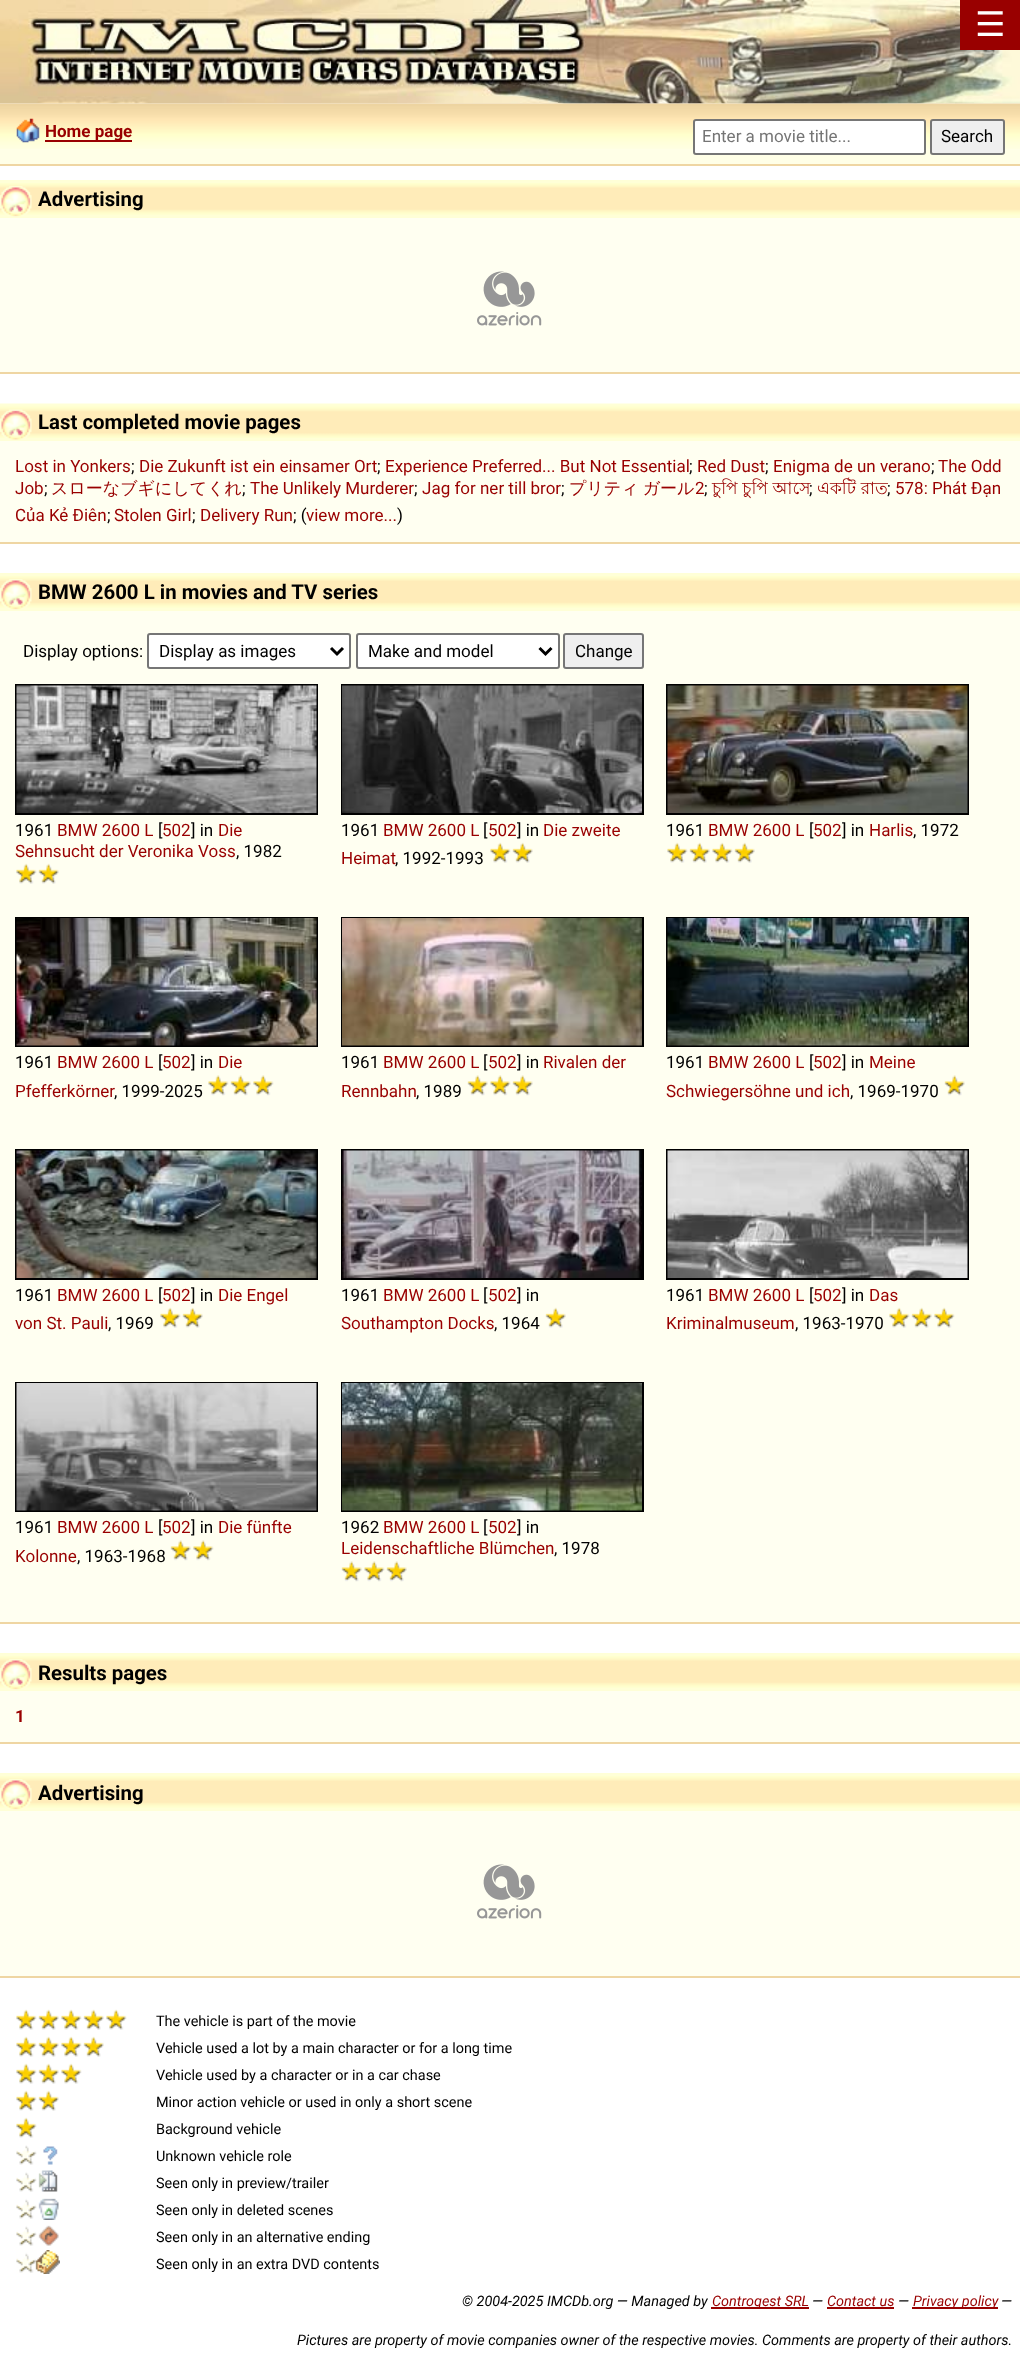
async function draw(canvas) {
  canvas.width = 1020;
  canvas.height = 2356;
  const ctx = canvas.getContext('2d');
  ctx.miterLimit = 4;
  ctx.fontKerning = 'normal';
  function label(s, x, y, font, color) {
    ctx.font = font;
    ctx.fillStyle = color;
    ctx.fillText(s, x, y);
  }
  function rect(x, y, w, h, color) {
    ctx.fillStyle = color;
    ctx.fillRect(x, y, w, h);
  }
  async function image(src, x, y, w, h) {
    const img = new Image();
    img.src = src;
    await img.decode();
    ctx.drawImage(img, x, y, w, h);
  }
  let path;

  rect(0, 0, 1020, 2356, '#fff');
  await image('assets/img1.png', 0, 0, 1020, 104);
  rect(960, 0, 60, 50, '#900');
  label('☰', 975, 36, '34px DejaVu Sans', '#fff');
  rect(0, 149, 1020, 15, '#ffffe7');
  await image('assets/img2.png', 0, 103, 1020, 46);
  rect(0, 164, 1020, 2, '#efd6a3');
  await image('assets/img3.png', 16, 118, 24, 25);
  rect(45, 140, 87, 2, '#900');
  label('Home page', 45, 137, 'bold 17px Roboto', '#900');
  ctx.fillStyle = '#fff';
  ctx.beginPath();
  ctx.roundRect(694, 120, 231, 34, 2);
  ctx.fill();
  ctx.strokeStyle = '#767676';
  ctx.lineWidth = 2;
  ctx.stroke();
  label('Enter a movie title...', 702, 142, '17px Roboto', '#757575');
  ctx.fillStyle = '#efefef';
  ctx.beginPath();
  ctx.roundRect(931, 120, 73, 34, 2);
  ctx.fill();
  ctx.stroke();
  label('Search', 941, 142, '17px Roboto', '#000');
  rect(0, 218, 1020, 154, '#fffff1');
  rect(0, 372, 1020, 2, '#efd6a3');
  rect(0, 180, 1020, 38, '#ffffd7');
  await image('assets/img4.png', 0, 183, 1020, 32);
  await image('assets/img5.png', 0, 186, 32, 31);
  label('Advertising', 38, 206, 'bold 20.4px Roboto', '#000');
  await image('assets/img6.png', 477, 271, 65, 55);
  rect(0, 441, 1020, 101, '#fffff1');
  rect(0, 542, 1020, 2, '#efd6a3');
  rect(0, 438, 1020, 3, '#ffffd7');
  await image('assets/img7.png', 0, 403, 1020, 35);
  await image('assets/img8.png', 0, 409, 32, 31);
  label('Last completed movie pages', 38, 429, 'bold 20.4px Roboto', '#000');
  label('Lost in Yonkers', 15, 472, '17px Roboto', '#900');
  label(';', 131, 472, '17px Roboto', '#000');
  label('Die Zukunft ist ein einsamer Ort', 139, 472, '17px Roboto', '#900');
  label(';', 377, 472, '17px Roboto', '#000');
  label('Experience Preferred... But Not Essential', 385, 472, '17px Roboto', '#900');
  label(';', 689, 472, '17px Roboto', '#000');
  label('Red Dust', 697, 472, '17px Roboto', '#900');
  label(';', 765, 472, '17px Roboto', '#000');
  label('Enigma de un verano', 773, 472, '17px Roboto', '#900');
  label(';', 931, 472, '17px Roboto', '#000');
  label('The Odd', 938, 472, '17px Roboto', '#900');
  label('Job', 15, 494, '17px Roboto', '#900');
  label(';', 44, 494, '17px Roboto', '#000');
  label('スローなブギにしてくれ', 51, 494, '500 17px WenQuanYi Zen Hei', '#900');
  label(';', 242, 494, '17px Roboto', '#000');
  label('The Unlikely Murderer', 250, 494, '17px Roboto', '#900');
  label(';', 414, 494, '17px Roboto', '#000');
  label('Jag for ner till bror', 422, 494, '17px Roboto', '#900');
  label(';', 561, 494, '17px Roboto', '#000');
  ctx.wordSpacing = '-1px';
  label('プリティ ガール', 569, 494, '500 17px WenQuanYi Zen Hei', '#900');
  ctx.wordSpacing = '0px';
  label('2', 695, 494, '17px Roboto', '#900');
  label(';', 704, 494, '17px Roboto', '#000');
  label('চুপি চুপি আসে', 712, 494, '17px Lohit Bengali', '#900');
  label('একটি রাত', 817, 494, '17px Lohit Bengali', '#900');
  label('578: Phát Đạn', 895, 494, '17px Roboto', '#900');
  label(';', 809, 494, '17px Roboto', '#000');
  label(';', 887, 494, '17px Roboto', '#000');
  label('Của Kẻ Điên', 15, 521, '17px Roboto', '#900');
  label(';', 107, 521, '17px Roboto', '#000');
  label('Stolen Girl', 114, 521, '17px Roboto', '#900');
  label(';', 192, 521, '17px Roboto', '#000');
  label('Delivery Run', 200, 521, '17px Roboto', '#900');
  label('; (', 293, 521, '17px Roboto', '#000');
  label('view more...', 306, 521, '17px Roboto', '#900');
  label(')', 397, 521, '17px Roboto', '#000');
  rect(0, 611, 1020, 1011, '#fffff1');
  rect(0, 1622, 1020, 2, '#efd6a3');
  rect(0, 573, 1020, 38, '#ffffd7');
  await image('assets/img9.png', 0, 576, 1020, 32);
  await image('assets/img10.png', 0, 579, 32, 31);
  label('BMW 2600 L in movies and TV series', 38, 599, 'bold 20.4px Roboto', '#000');
  label('Display options:', 23, 657, '17px Roboto', '#000');
  ctx.fillStyle = '#fff';
  ctx.beginPath();
  ctx.roundRect(148, 634, 202, 34, 2);
  ctx.fill();
  ctx.stroke();
  path = new Path2D('M331 648L337 654L343 648');
  ctx.strokeStyle = '#000';
  ctx.lineWidth = 3;
  ctx.stroke(path);
  label('Display as images', 159, 657, '17px Roboto', '#000');
  ctx.fillStyle = '#fff';
  ctx.beginPath();
  ctx.roundRect(357, 634, 202, 34, 2);
  ctx.fill();
  ctx.strokeStyle = '#767676';
  ctx.lineWidth = 2;
  ctx.stroke();
  path = new Path2D('M539.5 648L545.5 654L551.5 648');
  ctx.strokeStyle = '#000';
  ctx.lineWidth = 3;
  ctx.stroke(path);
  label('Make and model', 368, 657, '17px Roboto', '#000');
  ctx.fillStyle = '#efefef';
  ctx.beginPath();
  ctx.roundRect(564, 634, 79, 34, 2);
  ctx.fill();
  ctx.strokeStyle = '#767676';
  ctx.lineWidth = 2;
  ctx.stroke();
  label('Change', 575, 657, '17px Roboto', '#000');
  ctx.strokeStyle = '#000';
  ctx.strokeRect(16, 685, 301, 129);
  await image('assets/img11.png', 16, 685, 301, 128);
  label('1961', 15, 836, '17px Roboto', '#000');
  label('BMW 2600 L', 57, 836, '17px Roboto', '#900');
  label('[', 158, 836, '17px Roboto', '#000');
  label('502', 162, 836, '17px Roboto', '#900');
  label('] in', 191, 836, '17px Roboto', '#000');
  label('Die', 218, 836, '17px Roboto', '#900');
  label('Sehnsucht der Veronika Voss', 15, 857, '17px Roboto', '#900');
  label(', 1982', 236, 857, '17px Roboto', '#000');
  await image('assets/img12.png', 16, 863, 21, 21);
  await image('assets/img13.png', 38, 863, 21, 21);
  ctx.strokeRect(342, 685, 301, 129);
  await image('assets/img14.png', 342, 685, 300, 128);
  label('1961', 341, 836, '17px Roboto', '#000');
  label('BMW 2600 L', 383, 836, '17px Roboto', '#900');
  label('[', 483, 836, '17px Roboto', '#000');
  label('502', 488, 836, '17px Roboto', '#900');
  label('] in', 517, 836, '17px Roboto', '#000');
  label('Die zweite', 543, 836, '17px Roboto', '#900');
  label('Heimat', 341, 864, '17px Roboto', '#900');
  label(', 1992-1993', 395, 864, '17px Roboto', '#000');
  await image('assets/img15.png', 490, 842, 21, 21);
  await image('assets/img16.png', 512, 842, 21, 21);
  ctx.strokeRect(667, 685, 301, 129);
  await image('assets/img17.png', 667, 685, 301, 128);
  label('1961', 666, 836, '17px Roboto', '#000');
  label('BMW 2600 L', 708, 836, '17px Roboto', '#900');
  label('[', 809, 836, '17px Roboto', '#000');
  label('502', 813, 836, '17px Roboto', '#900');
  label('] in', 842, 836, '17px Roboto', '#000');
  label('Harlis', 869, 836, '17px Roboto', '#900');
  label(', 1972', 913, 836, '17px Roboto', '#000');
  await image('assets/img12.png', 667, 842, 21, 21);
  await image('assets/img18.png', 689, 842, 21, 21);
  await image('assets/img15.png', 712, 842, 21, 21);
  await image('assets/img18.png', 734, 842, 21, 21);
  ctx.strokeRect(16, 918, 301, 128);
  await image('assets/img19.png', 16, 918, 301, 128);
  label('1961', 15, 1068, '17px Roboto', '#000');
  label('BMW 2600 L', 57, 1068, '17px Roboto', '#900');
  label('[', 158, 1068, '17px Roboto', '#000');
  label('502', 162, 1068, '17px Roboto', '#900');
  label('] in', 191, 1068, '17px Roboto', '#000');
  label('Die', 218, 1068, '17px Roboto', '#900');
  label('Pfefferkörner', 15, 1097, '17px Roboto', '#900');
  label(', 1999-2025', 114, 1097, '17px Roboto', '#000');
  await image('assets/img20.png', 208, 1075, 21, 21);
  await image('assets/img21.png', 230, 1075, 21, 21);
  await image('assets/img20.png', 253, 1075, 21, 21);
  ctx.strokeRect(342, 918, 301, 128);
  await image('assets/img22.png', 342, 918, 300, 128);
  label('1961', 341, 1068, '17px Roboto', '#000');
  label('BMW 2600 L', 383, 1068, '17px Roboto', '#900');
  label('[', 483, 1068, '17px Roboto', '#000');
  label('502', 488, 1068, '17px Roboto', '#900');
  label('] in', 517, 1068, '17px Roboto', '#000');
  label('Rivalen der', 543, 1068, '17px Roboto', '#900');
  label('Rennbahn', 341, 1097, '17px Roboto', '#900');
  label(', 1989', 416, 1097, '17px Roboto', '#000');
  await image('assets/img21.png', 467, 1075, 21, 21);
  await image('assets/img23.png', 490, 1075, 21, 21);
  await image('assets/img24.png', 512, 1075, 21, 21);
  ctx.strokeRect(667, 918, 301, 128);
  await image('assets/img25.png', 667, 918, 301, 128);
  label('1961', 666, 1068, '17px Roboto', '#000');
  label('BMW 2600 L', 708, 1068, '17px Roboto', '#900');
  label('[', 809, 1068, '17px Roboto', '#000');
  label('502', 813, 1068, '17px Roboto', '#900');
  label('] in', 842, 1068, '17px Roboto', '#000');
  label('Meine', 869, 1068, '17px Roboto', '#900');
  label('Schwiegersöhne und ich', 666, 1097, '17px Roboto', '#900');
  label(', 1969-1970', 850, 1097, '17px Roboto', '#000');
  await image('assets/img21.png', 944, 1075, 21, 21);
  ctx.strokeRect(16, 1150, 301, 129);
  await image('assets/img26.png', 16, 1150, 301, 128);
  label('1961', 15, 1301, '17px Roboto', '#000');
  label('BMW 2600 L', 57, 1301, '17px Roboto', '#900');
  label('[', 158, 1301, '17px Roboto', '#000');
  label('502', 162, 1301, '17px Roboto', '#900');
  label('] in', 191, 1301, '17px Roboto', '#000');
  label('Die Engel', 218, 1301, '17px Roboto', '#900');
  label('von St. Pauli', 15, 1329, '17px Roboto', '#900');
  label(', 1969', 108, 1329, '17px Roboto', '#000');
  await image('assets/img12.png', 160, 1307, 21, 21);
  await image('assets/img13.png', 182, 1307, 21, 21);
  ctx.strokeRect(342, 1150, 301, 129);
  await image('assets/img27.png', 342, 1150, 300, 128);
  label('1961', 341, 1301, '17px Roboto', '#000');
  label('BMW 2600 L', 383, 1301, '17px Roboto', '#900');
  label('[', 483, 1301, '17px Roboto', '#000');
  label('502', 488, 1301, '17px Roboto', '#900');
  label('] in', 517, 1301, '17px Roboto', '#000');
  label('Southampton Docks', 341, 1329, '17px Roboto', '#900');
  label(', 1964', 494, 1329, '17px Roboto', '#000');
  await image('assets/img18.png', 545, 1307, 21, 21);
  ctx.strokeRect(667, 1150, 301, 129);
  await image('assets/img28.png', 667, 1150, 301, 128);
  label('1961', 666, 1301, '17px Roboto', '#000');
  label('BMW 2600 L', 708, 1301, '17px Roboto', '#900');
  label('[', 809, 1301, '17px Roboto', '#000');
  label('502', 813, 1301, '17px Roboto', '#900');
  label('] in', 842, 1301, '17px Roboto', '#000');
  label('Das', 869, 1301, '17px Roboto', '#900');
  label('Kriminalmuseum', 666, 1329, '17px Roboto', '#900');
  label(', 1963-1970', 795, 1329, '17px Roboto', '#000');
  await image('assets/img12.png', 889, 1307, 21, 21);
  await image('assets/img13.png', 911, 1307, 21, 21);
  await image('assets/img12.png', 934, 1307, 21, 21);
  ctx.strokeRect(16, 1383, 301, 128);
  await image('assets/img29.png', 16, 1383, 301, 128);
  label('1961', 15, 1533, '17px Roboto', '#000');
  label('BMW 2600 L', 57, 1533, '17px Roboto', '#900');
  label('[', 158, 1533, '17px Roboto', '#000');
  label('502', 162, 1533, '17px Roboto', '#900');
  label('] in', 191, 1533, '17px Roboto', '#000');
  label('Die fünfte', 218, 1533, '17px Roboto', '#900');
  label('Kolonne', 15, 1562, '17px Roboto', '#900');
  label(', 1963-1968', 77, 1562, '17px Roboto', '#000');
  await image('assets/img21.png', 170, 1540, 21, 21);
  await image('assets/img20.png', 193, 1540, 21, 21);
  ctx.strokeRect(342, 1383, 301, 128);
  await image('assets/img30.png', 342, 1383, 300, 128);
  label('1962', 341, 1533, '17px Roboto', '#000');
  label('BMW 2600 L', 383, 1533, '17px Roboto', '#900');
  label('[', 483, 1533, '17px Roboto', '#000');
  label('502', 488, 1533, '17px Roboto', '#900');
  label('] in', 517, 1533, '17px Roboto', '#000');
  label('Leidenschaftliche Blümchen', 341, 1554, '17px Roboto', '#900');
  label(', 1978', 554, 1554, '17px Roboto', '#000');
  await image('assets/img21.png', 341, 1561, 21, 21);
  await image('assets/img23.png', 364, 1561, 21, 21);
  await image('assets/img31.png', 386, 1561, 21, 21);
  rect(0, 1691, 1020, 51, '#fffff1');
  rect(0, 1742, 1020, 2, '#efd6a3');
  rect(0, 1653, 1020, 38, '#ffffd7');
  await image('assets/img32.png', 0, 1656, 1020, 32);
  await image('assets/img33.png', 0, 1659, 32, 31);
  label('Results pages', 38, 1680, 'bold 20.4px Roboto', '#000');
  label('1', 15, 1722, 'bold 17px Roboto', '#900');
  rect(0, 1811, 1020, 165, '#fffff1');
  rect(0, 1976, 1020, 2, '#efd6a3');
  rect(0, 1773, 1020, 38, '#ffffd7');
  await image('assets/img34.png', 0, 1776, 1020, 32);
  await image('assets/img35.png', 0, 1779, 32, 31);
  label('Advertising', 38, 1800, 'bold 20.4px Roboto', '#000');
  await image('assets/img6.png', 477, 1864, 65, 55);
  await image('assets/img36.png', 16, 2009, 21, 21);
  await image('assets/img37.png', 38, 2009, 21, 21);
  await image('assets/img36.png', 61, 2009, 21, 21);
  await image('assets/img37.png', 83, 2009, 21, 21);
  await image('assets/img36.png', 106, 2009, 21, 21);
  label('The vehicle is part of the movie', 156, 2026, '14.45px Roboto', '#000');
  await image('assets/img36.png', 16, 2036, 21, 21);
  await image('assets/img37.png', 38, 2036, 21, 21);
  await image('assets/img36.png', 61, 2036, 21, 21);
  await image('assets/img37.png', 83, 2036, 21, 21);
  label('Vehicle used a lot by a main character or for a long time', 156, 2053, '14.45px Roboto', '#000');
  await image('assets/img36.png', 16, 2063, 21, 21);
  await image('assets/img37.png', 38, 2063, 21, 21);
  await image('assets/img36.png', 61, 2063, 21, 21);
  label('Vehicle used by a character or in a car chase', 156, 2080, '14.45px Roboto', '#000');
  await image('assets/img36.png', 16, 2090, 21, 21);
  await image('assets/img37.png', 38, 2090, 21, 21);
  label('Minor action vehicle or used in only a short scene', 156, 2107, '14.45px Roboto', '#000');
  await image('assets/img36.png', 16, 2117, 21, 21);
  label('Background vehicle', 156, 2134, '14.45px Roboto', '#000');
  await image('assets/img38.png', 16, 2145, 42, 20);
  label('Unknown vehicle role', 156, 2161, '14.45px Roboto', '#000');
  await image('assets/img39.png', 16, 2170, 42, 22);
  label('Seen only in preview/trailer', 156, 2188, '14.45px Roboto', '#000');
  await image('assets/img40.png', 16, 2198, 43, 22);
  label('Seen only in deleted scenes', 156, 2215, '14.45px Roboto', '#000');
  await image('assets/img41.png', 16, 2225, 43, 21);
  label('Seen only in an alternative ending', 156, 2242, '14.45px Roboto', '#000');
  await image('assets/img42.png', 16, 2250, 44, 24);
  label('Seen only in an extra DVD contents', 156, 2269, '14.45px Roboto', '#000');
  label('© 2004-2025 IMCDb.org — Managed by', 462, 2306, 'italic 14.45px Roboto', '#000');
  rect(711, 2307, 98, 2, '#900');
  label('Controgest SRL', 712, 2306, 'italic 14.45px Roboto', '#900');
  label('—', 812, 2306, 'italic 14.45px Roboto', '#000');
  label('Contact us', 827, 2306, 'italic 14.45px Roboto', '#900');
  rect(827, 2307, 67, 2, '#900');
  label('—', 898, 2306, 'italic 14.45px Roboto', '#000');
  rect(912, 2307, 86, 2, '#900');
  label('Privacy policy', 913, 2306, 'italic 14.45px Roboto', '#900');
  label('—', 1001, 2306, 'italic 14.45px Roboto', '#000');
  label('Pictures are property of movie companies owner of the respective movies. Comments are property of their authors.', 297, 2345, 'italic 14.45px Roboto', '#000');
}

draw(document.querySelector('canvas'));
